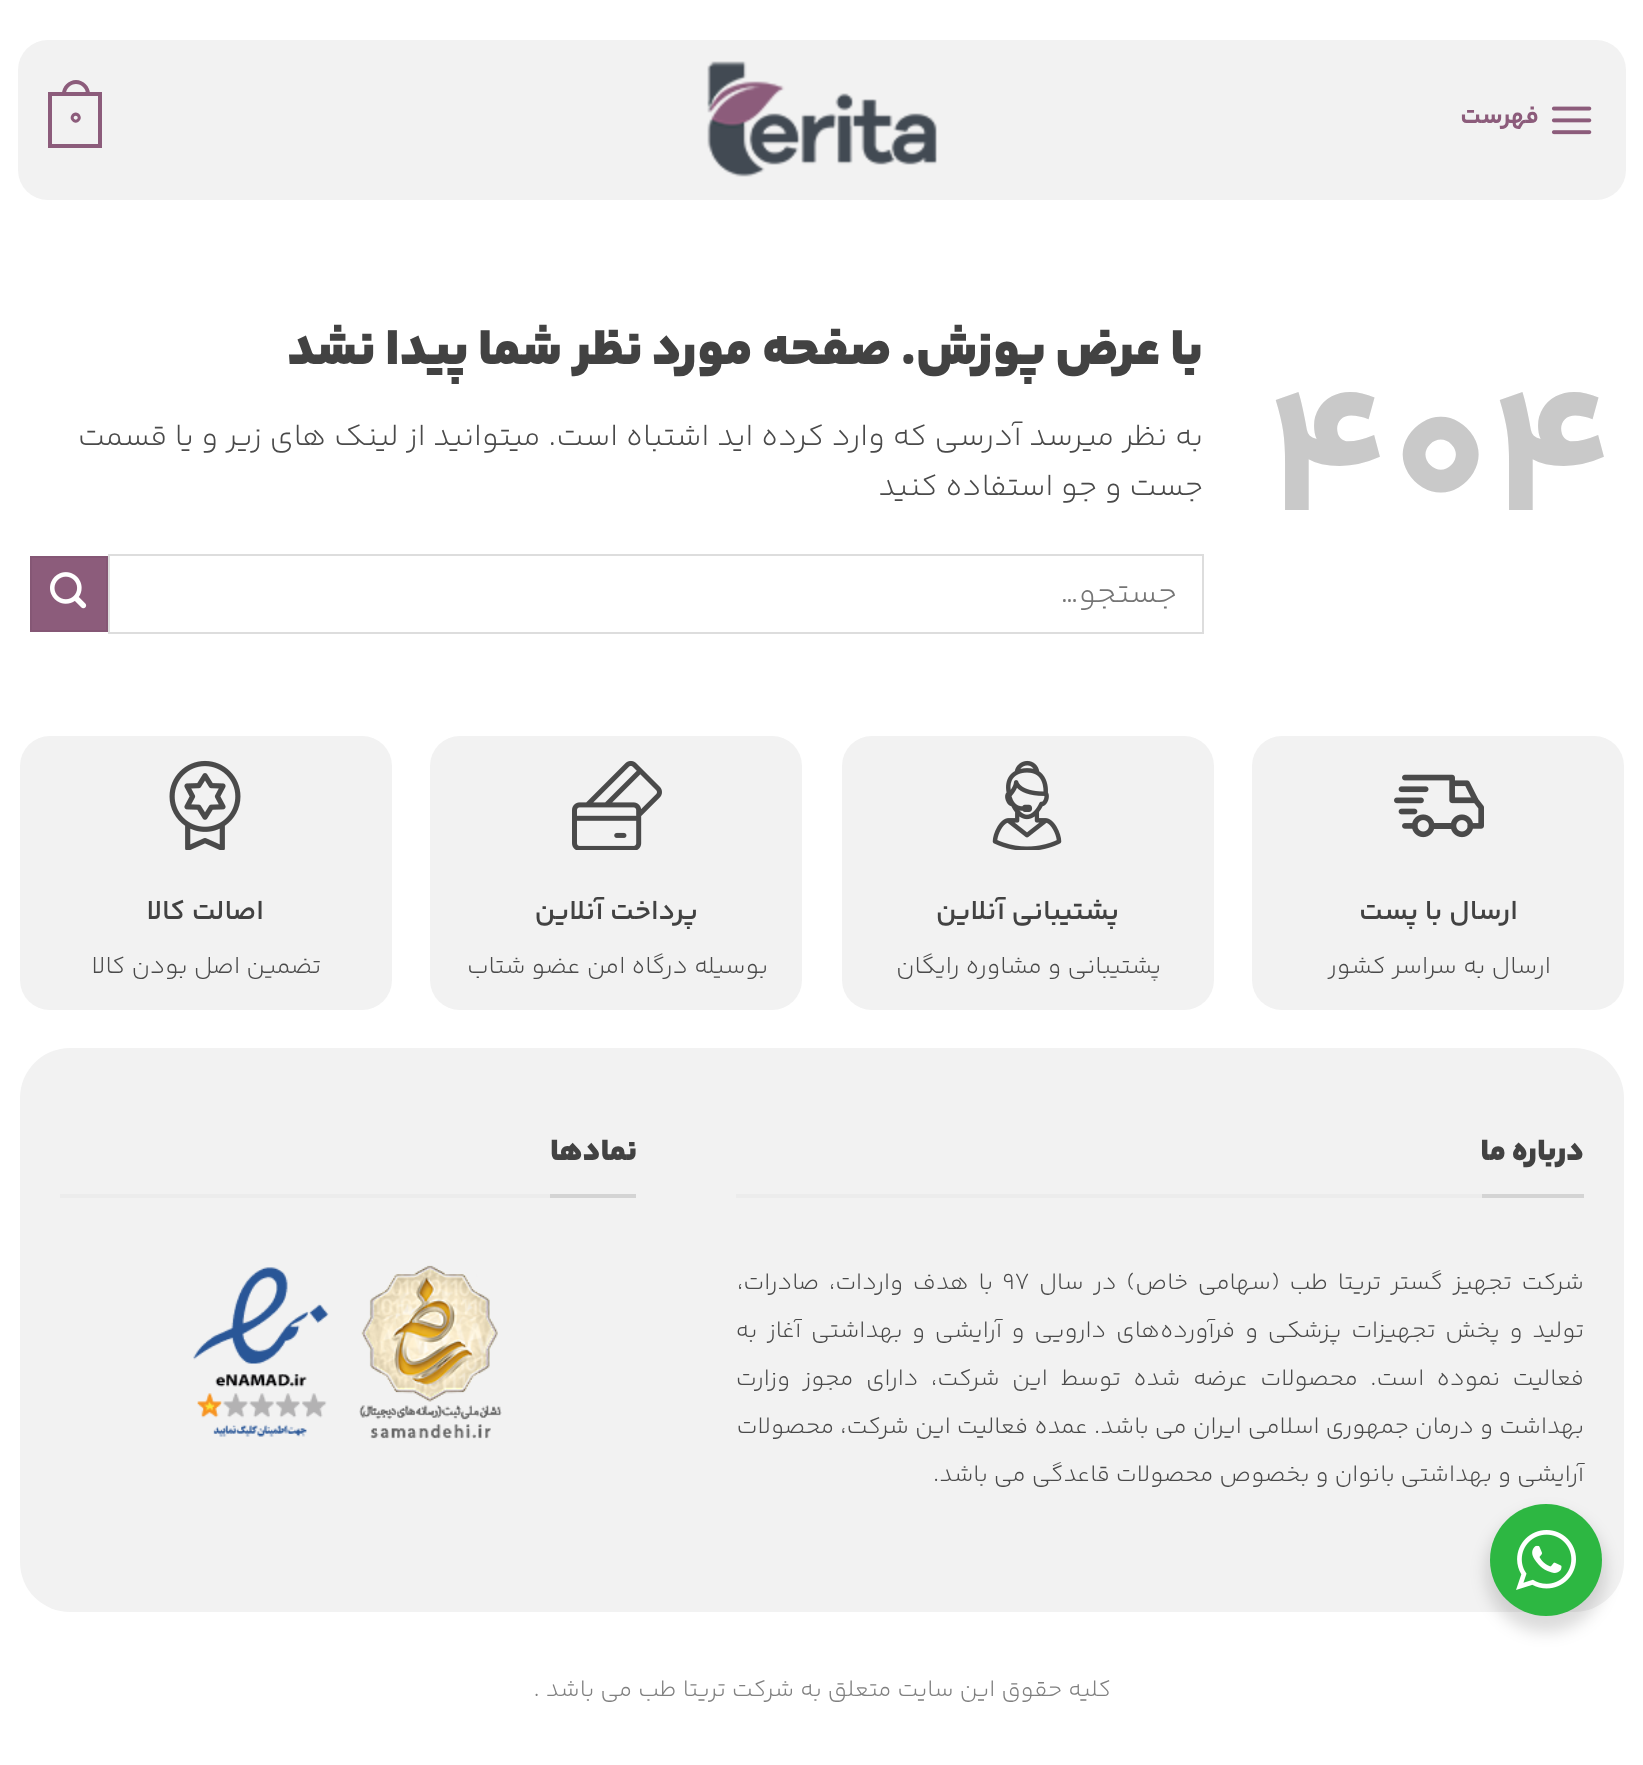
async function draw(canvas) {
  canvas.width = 1643;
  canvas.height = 1765;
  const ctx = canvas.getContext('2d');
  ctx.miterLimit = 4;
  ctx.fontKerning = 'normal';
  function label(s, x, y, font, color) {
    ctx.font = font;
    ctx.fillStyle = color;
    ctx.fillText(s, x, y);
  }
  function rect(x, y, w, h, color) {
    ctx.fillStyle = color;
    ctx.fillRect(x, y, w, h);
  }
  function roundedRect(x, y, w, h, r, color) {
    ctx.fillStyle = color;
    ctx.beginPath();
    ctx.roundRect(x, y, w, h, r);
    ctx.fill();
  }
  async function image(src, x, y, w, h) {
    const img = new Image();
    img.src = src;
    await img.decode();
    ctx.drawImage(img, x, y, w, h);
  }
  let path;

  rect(0, 0, 1643, 1765, '#fff');
  roundedRect(18, 40, 1608, 160, 30, '#f2f2f2');
  await image('assets/img1.png', 1551, 106, 41, 29);
  ctx.direction = 'rtl';
  label('فهرست', 1539, 123, 'bold 24.75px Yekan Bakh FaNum', '#8c5c7b');
  await image('assets/img2.png', 707, 61, 230, 116);
  ctx.strokeStyle = '#8c5c7b';
  ctx.lineWidth = 4;
  ctx.strokeRect(50, 94, 50, 52);
  path = new Path2D('M76 80C83.5 80 90 86.5 90 94V96H62V94C62 86.5 68.5 80 76 80ZM76 84C81.5 84 86 88.5 86 94V96H66V94C66 88.5 70.5 84 76 84Z');
  ctx.fill(path, 'evenodd');
  ctx.direction = 'ltr';
  label('0', 69, 125, 'bold 24.75px Yekan Bakh FaNum', '#8c5c7b');
  label('404', 1267, 510, 'bold 186px Yekan Bakh FaNum', '#c9c9c9');
  ctx.direction = 'rtl';
  label('با عرض پوزش. صفحه مورد نظر شما پیدا نشد', 1203, 364, '900 52.75px Yekan Bakh FaNum', '#424242');
  label('به نظر میرسد آدرسی که وارد کرده اید اشتباه است. میتوانید از لینک های زیر و یا قسمت', 1203, 445, '300 31.05px Yekan Bakh FaNum', '#4a4a4a');
  label('جست و جو استفاده کنید', 1203, 495, '300 31.05px Yekan Bakh FaNum', '#4a4a4a');
  ctx.strokeStyle = '#ddd';
  ctx.lineWidth = 2;
  ctx.strokeRect(109, 555, 1094, 78);
  label('جستجو…', 1177, 602, '300 32px Yekan Bakh FaNum', '#757575');
  ctx.fillStyle = '#8c5c7b';
  ctx.beginPath();
  ctx.rect(31, 557, 76, 74);
  ctx.fill();
  ctx.strokeStyle = '#855775';
  ctx.stroke();
  await image('assets/img3.png', 50, 572, 37, 37);
  roundedRect(1252, 736, 372, 274, 30, '#f2f2f2');
  await image('assets/img4.png', 1394, 774, 90, 64);
  label('ارسال با پست', 1518, 919, '600 28px Yekan Bakh FaNum', '#424242');
  label('ارسال به سراسر کشور', 1551, 973, '300 24.75px Yekan Bakh FaNum', '#4a4a4a');
  roundedRect(842, 736, 372, 274, 30, '#f2f2f2');
  await image('assets/img5.png', 992, 760, 70, 90);
  label('پشتیبانی آنلاین', 1119, 919, '600 28px Yekan Bakh FaNum', '#424242');
  label('پشتیبانی و مشاوره رایگان', 1161, 973, '300 24.75px Yekan Bakh FaNum', '#4a4a4a');
  roundedRect(430, 736, 372, 274, 30, '#f2f2f2');
  await image('assets/img6.png', 572, 760, 90, 90);
  label('پرداخت آنلاین', 698, 919, '600 28px Yekan Bakh FaNum', '#424242');
  label('بوسیله درگاه امن عضو شتاب', 768, 973, '300 24.75px Yekan Bakh FaNum', '#4a4a4a');
  roundedRect(20, 736, 372, 274, 30, '#f2f2f2');
  await image('assets/img7.png', 169, 760, 72, 90);
  label('اصالت کالا', 264, 919, '600 28px Yekan Bakh FaNum', '#424242');
  label('تضمین اصل بودن کالا', 321, 973, '300 24.75px Yekan Bakh FaNum', '#4a4a4a');
  roundedRect(20, 1048, 1604, 564, 50, '#f2f2f2');
  rect(736, 1194, 746, 4, '#ececec');
  rect(1482, 1194, 102, 4, '#d4d4d4');
  label('درباره ما', 1584, 1160, '900 31.5px Yekan Bakh FaNum', '#424242');
  ctx.wordSpacing = '3.75px';
  label('شرکت تجهیز گستر تریتا طب (سهامی خاص) در سال', 1584, 1289, '300 24px Yekan Bakh FaNum', '#4a4a4a');
  ctx.wordSpacing = '0px';
  ctx.direction = 'ltr';
  label('۹۷', 1002, 1289, '300 24px Yekan Bakh FaNum', '#4a4a4a');
  ctx.wordSpacing = '3.75px';
  ctx.direction = 'rtl';
  label('با هدف واردات، صادرات،', 993, 1289, '300 24px Yekan Bakh FaNum', '#4a4a4a');
  label('تولید و پخش تجهیزات پزشکی و فرآورده‌های دارویی و آرایشی و بهداشتی آغاز به', 1584, 1337, '300 24px Yekan Bakh FaNum', '#4a4a4a');
  ctx.wordSpacing = '6.5px';
  label('فعالیت نموده است. محصولات عرضه شده توسط این شرکت، دارای مجوز وزارت', 1584, 1385, '300 24px Yekan Bakh FaNum', '#4a4a4a');
  ctx.wordSpacing = '0.1px';
  label('بهداشت و درمان جمهوری اسلامی ایران می باشد. عمده فعالیت این شرکت، محصولات', 1584, 1433, '300 24px Yekan Bakh FaNum', '#4a4a4a');
  ctx.wordSpacing = '0px';
  label('آرایشی و بهداشتی بانوان و بخصوص محصولات قاعدگی می باشد.', 1584, 1481, '300 24px Yekan Bakh FaNum', '#4a4a4a');
  rect(60, 1194, 490, 4, '#ececec');
  rect(550, 1194, 86, 4, '#d4d4d4');
  label('نمادها', 637, 1160, '900 31.5px Yekan Bakh FaNum', '#424242');
  await image('assets/img8.png', 193, 1265, 309, 174);
  label('کلیه حقوق این سایت متعلق به شرکت تریتا طب می باشد .', 1111, 1696, '300 24px Yekan Bakh FaNum', '#808080');
  ctx.fillStyle = '#00000024';
  ctx.filter = 'blur(8px)';
  ctx.beginPath();
  ctx.roundRect(1486, 1512, 120, 120, 60);
  ctx.fill();
  ctx.filter = 'none';
  ctx.fillStyle = '#2db742';
  ctx.beginPath();
  ctx.arc(1546, 1560, 56, 0, 2 * Math.PI);
  ctx.fill();
  await image('assets/img9.png', 1516, 1530, 60, 60);
}

draw(document.querySelector('canvas'));
